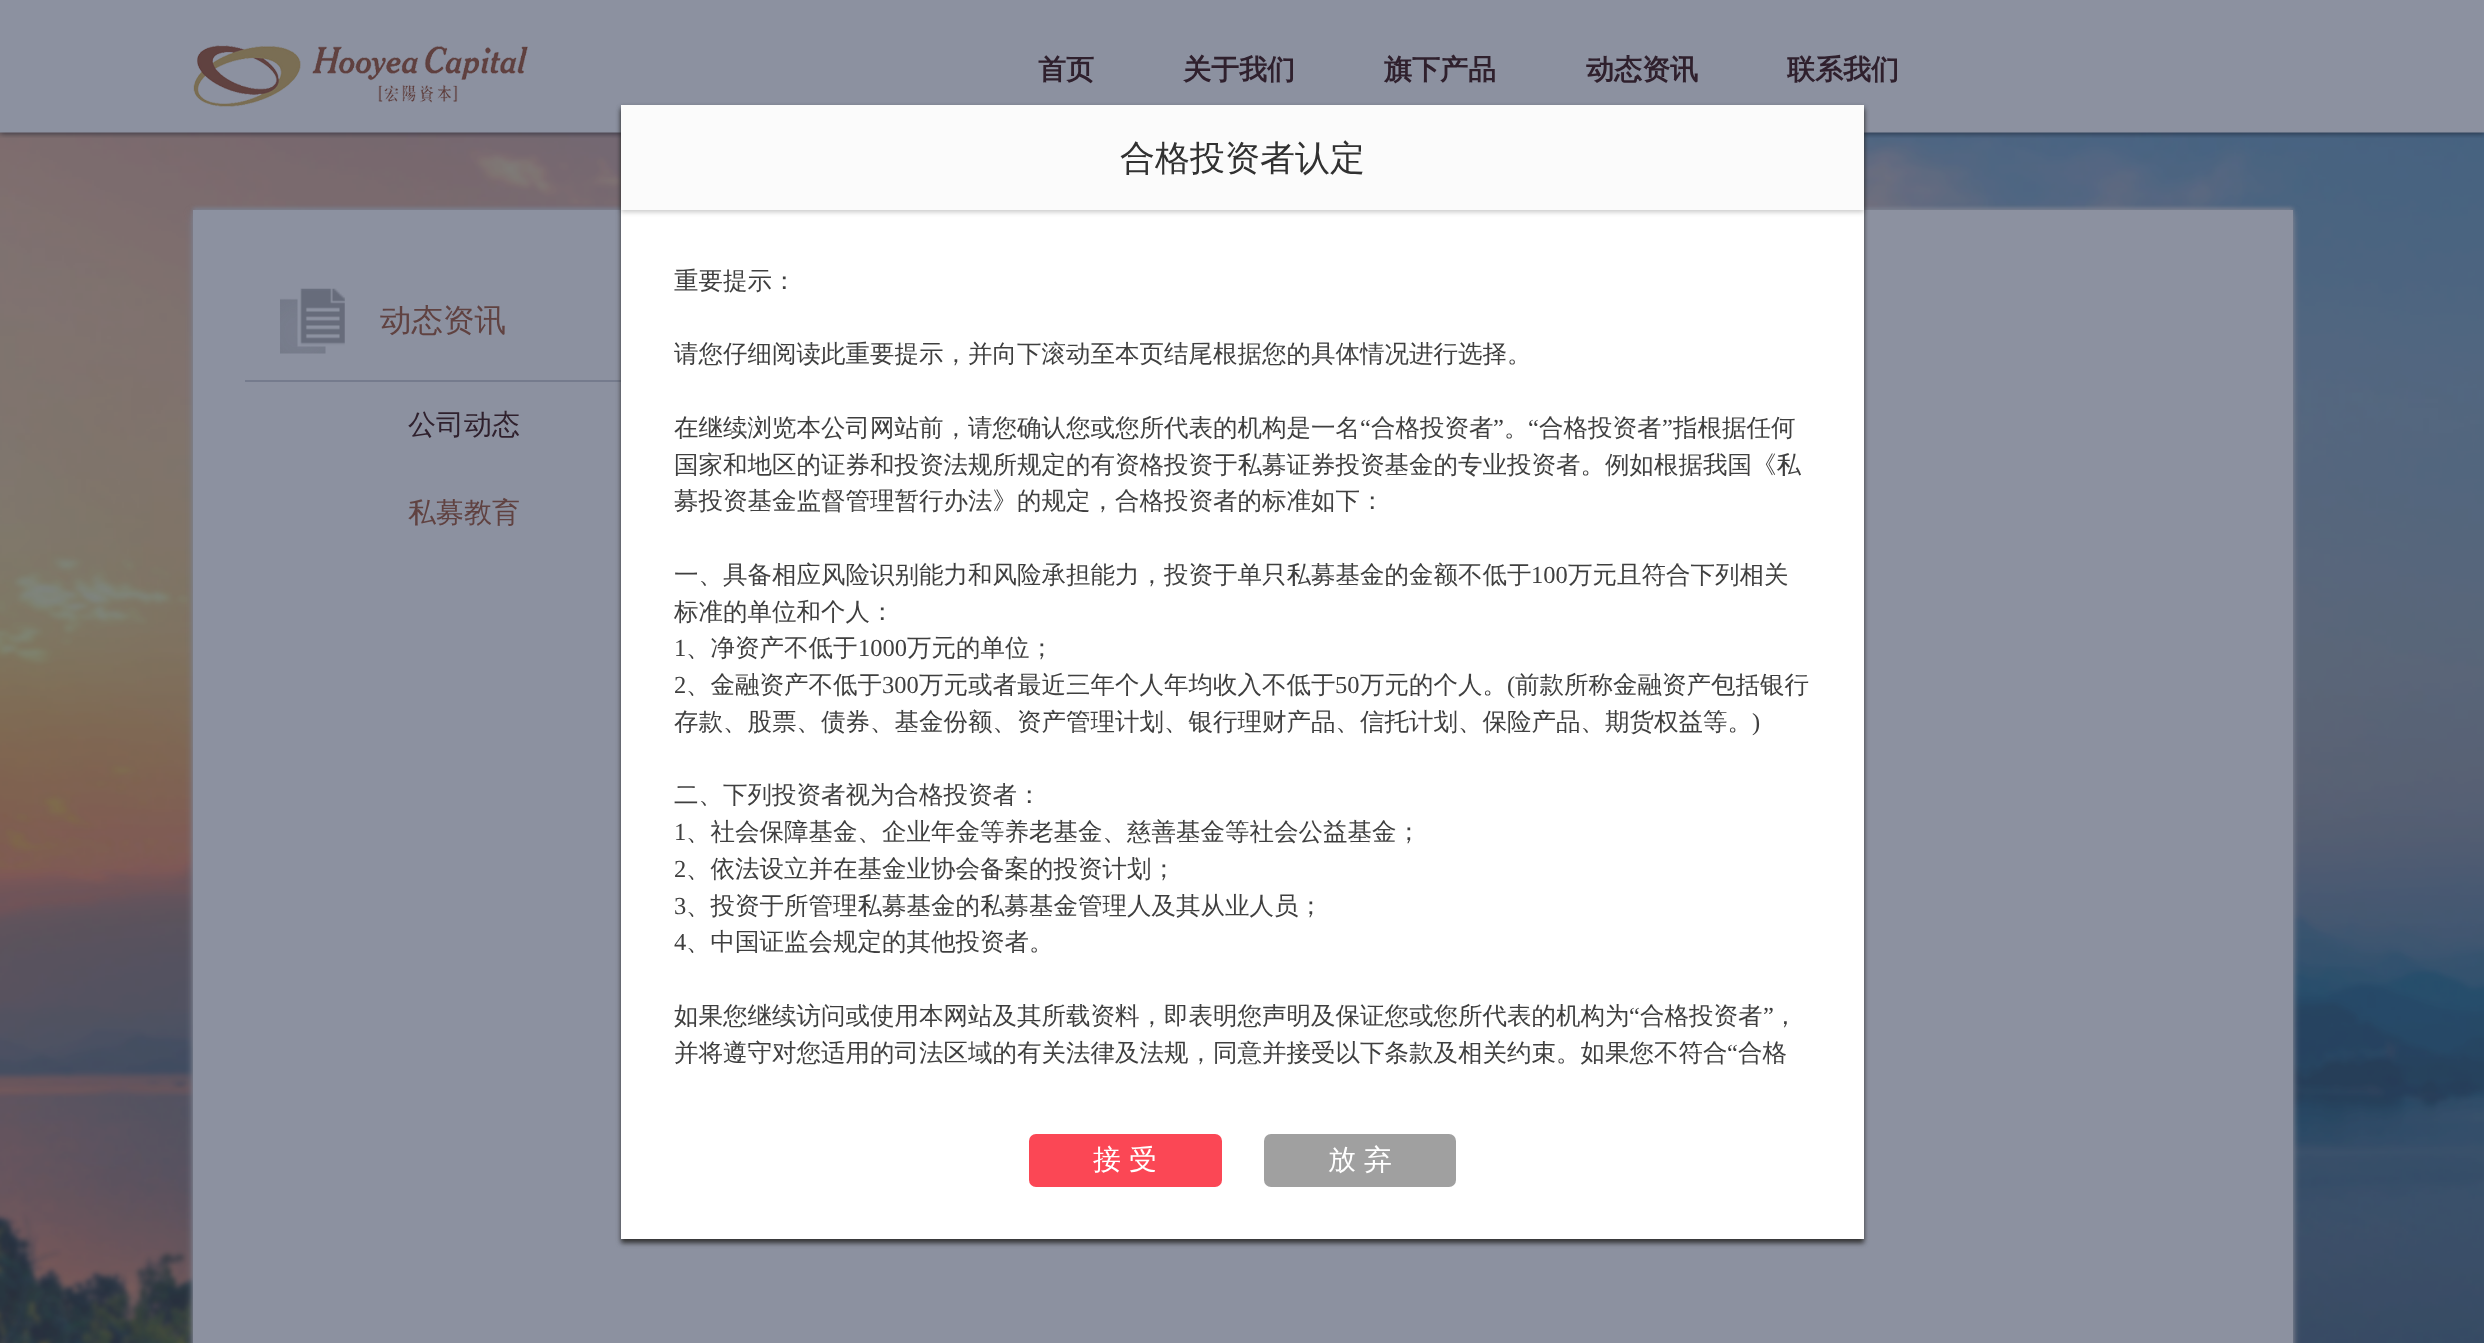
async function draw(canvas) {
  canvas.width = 2484;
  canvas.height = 1343;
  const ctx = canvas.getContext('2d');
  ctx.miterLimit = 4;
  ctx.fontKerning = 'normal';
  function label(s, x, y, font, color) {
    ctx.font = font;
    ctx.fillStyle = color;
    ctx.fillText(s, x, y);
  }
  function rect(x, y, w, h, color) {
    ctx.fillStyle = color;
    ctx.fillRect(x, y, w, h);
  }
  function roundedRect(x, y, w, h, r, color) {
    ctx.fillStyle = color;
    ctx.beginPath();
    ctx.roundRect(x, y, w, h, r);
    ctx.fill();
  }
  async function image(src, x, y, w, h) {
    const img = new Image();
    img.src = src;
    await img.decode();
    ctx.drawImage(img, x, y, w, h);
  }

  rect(0, 0, 2484, 1343, '#fff');
  await image('assets/img1.png', 0, 132, 2484, 1211);
  ctx.fillStyle = '#7b808f';
  ctx.filter = 'blur(2px)';
  ctx.beginPath();
  ctx.rect(193, 208, 2100, 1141);
  ctx.fill();
  ctx.filter = 'none';
  ctx.filter = 'blur(4.5px)';
  ctx.beginPath();
  ctx.rect(193, 214, 2100, 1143);
  ctx.fill();
  ctx.filter = 'none';
  rect(193, 210, 2100, 1133, '#8c91a0');
  await image('assets/img2.png', 280, 288, 65, 66);
  rect(245, 380, 376, 2, '#757b8d');
  label('动态资讯', 380, 331, '500 31.5px WenQuanYi Zen Hei', '#604241');
  label('公司动态', 408, 434, '500 28px WenQuanYi Zen Hei', '#2f202d');
  label('私募教育', 408, 522, '500 28px WenQuanYi Zen Hei', '#604241');
  await image('assets/img3.png', 0, 0, 2484, 138);
  await image('assets/img4.png', 193, 45, 335, 62);
  label('首页', 1038, 79, 'bold 28px WenQuanYi Zen Hei', '#2f202d');
  label('关于我们', 1183, 79, 'bold 28px WenQuanYi Zen Hei', '#2f202d');
  label('旗下产品', 1384, 79, 'bold 28px WenQuanYi Zen Hei', '#2f202d');
  label('动态资讯', 1586, 79, 'bold 28px WenQuanYi Zen Hei', '#2f202d');
  label('联系我们', 1787, 79, 'bold 28px WenQuanYi Zen Hei', '#2f202d');
  ctx.fillStyle = '#333';
  ctx.filter = 'blur(2.5px)';
  ctx.beginPath();
  ctx.rect(621, 109, 1243, 1134);
  ctx.fill();
  ctx.filter = 'none';
  rect(621, 210, 1243, 1029, '#fff');
  ctx.fillStyle = '#00000038';
  ctx.filter = 'blur(2.5px)';
  ctx.beginPath();
  ctx.rect(621, 107, 1243, 105);
  ctx.fill();
  ctx.filter = 'none';
  rect(621, 105, 1243, 105, '#fbfbfb');
  label('合格投资者认定', 1120, 170, '500 35px WenQuanYi Zen Hei', '#313131');
  label('重要提示：', 674, 289, '500 24.5px WenQuanYi Zen Hei', '#3f3f3f');
  label('请您仔细阅读此重要提示，并向下滚动至本页结尾根据您的具体情况进行选择。', 674, 362, '500 24.5px WenQuanYi Zen Hei', '#3f3f3f');
  label('在继续浏览本公司网站前，请您确认您或您所代表的机构是一名', 674, 436, '500 24.5px WenQuanYi Zen Hei', '#3f3f3f');
  label('“', 1360, 436, '24.5px Liberation Serif', '#3f3f3f');
  label('合格投资者', 1371, 436, '500 24.5px WenQuanYi Zen Hei', '#3f3f3f');
  label('”', 1493, 436, '24.5px Liberation Serif', '#3f3f3f');
  label('“', 1528, 436, '24.5px Liberation Serif', '#3f3f3f');
  label('合格投资者', 1539, 436, '500 24.5px WenQuanYi Zen Hei', '#3f3f3f');
  label('”', 1662, 436, '24.5px Liberation Serif', '#3f3f3f');
  label('指根据任何', 1673, 436, '500 24.5px WenQuanYi Zen Hei', '#3f3f3f');
  label('。', 1504, 436, '500 24.5px WenQuanYi Zen Hei', '#3f3f3f');
  label('国家和地区的证券和投资法规所规定的有资格投资于私募证券投资基金的专业投资者。例如根据我国《私', 674, 473, '500 24.5px WenQuanYi Zen Hei', '#3f3f3f');
  label('募投资基金监督管理暂行办法》的规定，合格投资者的标准如下：', 674, 509, '500 24.5px WenQuanYi Zen Hei', '#3f3f3f');
  label('一、具备相应风险识别能力和风险承担能力，投资于单只私募基金的金额不低于', 674, 583, '500 24.5px WenQuanYi Zen Hei', '#3f3f3f');
  label('100', 1531, 583, '24.5px Liberation Serif', '#3f3f3f');
  label('万元且符合下列相关', 1568, 583, '500 24.5px WenQuanYi Zen Hei', '#3f3f3f');
  label('标准的单位和个人：', 674, 620, '500 24.5px WenQuanYi Zen Hei', '#3f3f3f');
  label('1', 674, 656, '24.5px Liberation Serif', '#3f3f3f');
  label('、净资产不低于', 686, 656, '500 24.5px WenQuanYi Zen Hei', '#3f3f3f');
  label('1000', 858, 656, '24.5px Liberation Serif', '#3f3f3f');
  label('万元的单位；', 907, 656, '500 24.5px WenQuanYi Zen Hei', '#3f3f3f');
  label('2', 674, 693, '24.5px Liberation Serif', '#3f3f3f');
  label('、金融资产不低于', 686, 693, '500 24.5px WenQuanYi Zen Hei', '#3f3f3f');
  label('300', 882, 693, '24.5px Liberation Serif', '#3f3f3f');
  label('万元或者最近三年个人年均收入不低于', 919, 693, '500 24.5px WenQuanYi Zen Hei', '#3f3f3f');
  label('50', 1335, 693, '24.5px Liberation Serif', '#3f3f3f');
  label('万元的个人。', 1360, 693, '500 24.5px WenQuanYi Zen Hei', '#3f3f3f');
  label('(', 1507, 693, '24.5px Liberation Serif', '#3f3f3f');
  label('前款所称金融资产包括银行', 1515, 693, '500 24.5px WenQuanYi Zen Hei', '#3f3f3f');
  label('存款、股票、债券、基金份额、资产管理计划、银行理财产品、信托计划、保险产品、期货权益等。', 674, 730, '500 24.5px WenQuanYi Zen Hei', '#3f3f3f');
  label(')', 1752, 730, '24.5px Liberation Serif', '#3f3f3f');
  label('二、下列投资者视为合格投资者：', 674, 803, '500 24.5px WenQuanYi Zen Hei', '#3f3f3f');
  label('1', 674, 840, '24.5px Liberation Serif', '#3f3f3f');
  label('、社会保障基金、企业年金等养老基金、慈善基金等社会公益基金；', 686, 840, '500 24.5px WenQuanYi Zen Hei', '#3f3f3f');
  label('2', 674, 877, '24.5px Liberation Serif', '#3f3f3f');
  label('、依法设立并在基金业协会备案的投资计划；', 686, 877, '500 24.5px WenQuanYi Zen Hei', '#3f3f3f');
  label('3', 674, 914, '24.5px Liberation Serif', '#3f3f3f');
  label('、投资于所管理私募基金的私募基金管理人及其从业人员；', 686, 914, '500 24.5px WenQuanYi Zen Hei', '#3f3f3f');
  label('4', 674, 950, '24.5px Liberation Serif', '#3f3f3f');
  label('、中国证监会规定的其他投资者。', 686, 950, '500 24.5px WenQuanYi Zen Hei', '#3f3f3f');
  label('如果您继续访问或使用本网站及其所载资料，即表明您声明及保证您或您所代表的机构为', 674, 1024, '500 24.5px WenQuanYi Zen Hei', '#3f3f3f');
  label('“', 1629, 1024, '24.5px Liberation Serif', '#3f3f3f');
  label('合格投资者', 1640, 1024, '500 24.5px WenQuanYi Zen Hei', '#3f3f3f');
  label('”', 1763, 1024, '24.5px Liberation Serif', '#3f3f3f');
  label('，', 1773, 1024, '500 24.5px WenQuanYi Zen Hei', '#3f3f3f');
  label('并将遵守对您适用的司法区域的有关法律及法规，同意并接受以下条款及相关约束。如果您不符合', 674, 1061, '500 24.5px WenQuanYi Zen Hei', '#3f3f3f');
  label('“', 1727, 1061, '24.5px Liberation Serif', '#3f3f3f');
  label('合格', 1738, 1061, '500 24.5px WenQuanYi Zen Hei', '#3f3f3f');
  roundedRect(1029, 1134, 193, 53, 7, '#fb4755');
  label('接', 1093, 1169, '500 28px WenQuanYi Zen Hei', '#fff');
  label('受', 1129, 1169, '500 28px WenQuanYi Zen Hei', '#fff');
  roundedRect(1264, 1134, 192, 53, 7, '#a0a0a0');
  label('放', 1328, 1169, '500 28px WenQuanYi Zen Hei', '#fff');
  label('弃', 1364, 1169, '500 28px WenQuanYi Zen Hei', '#fff');
}

draw(document.querySelector('canvas'));
